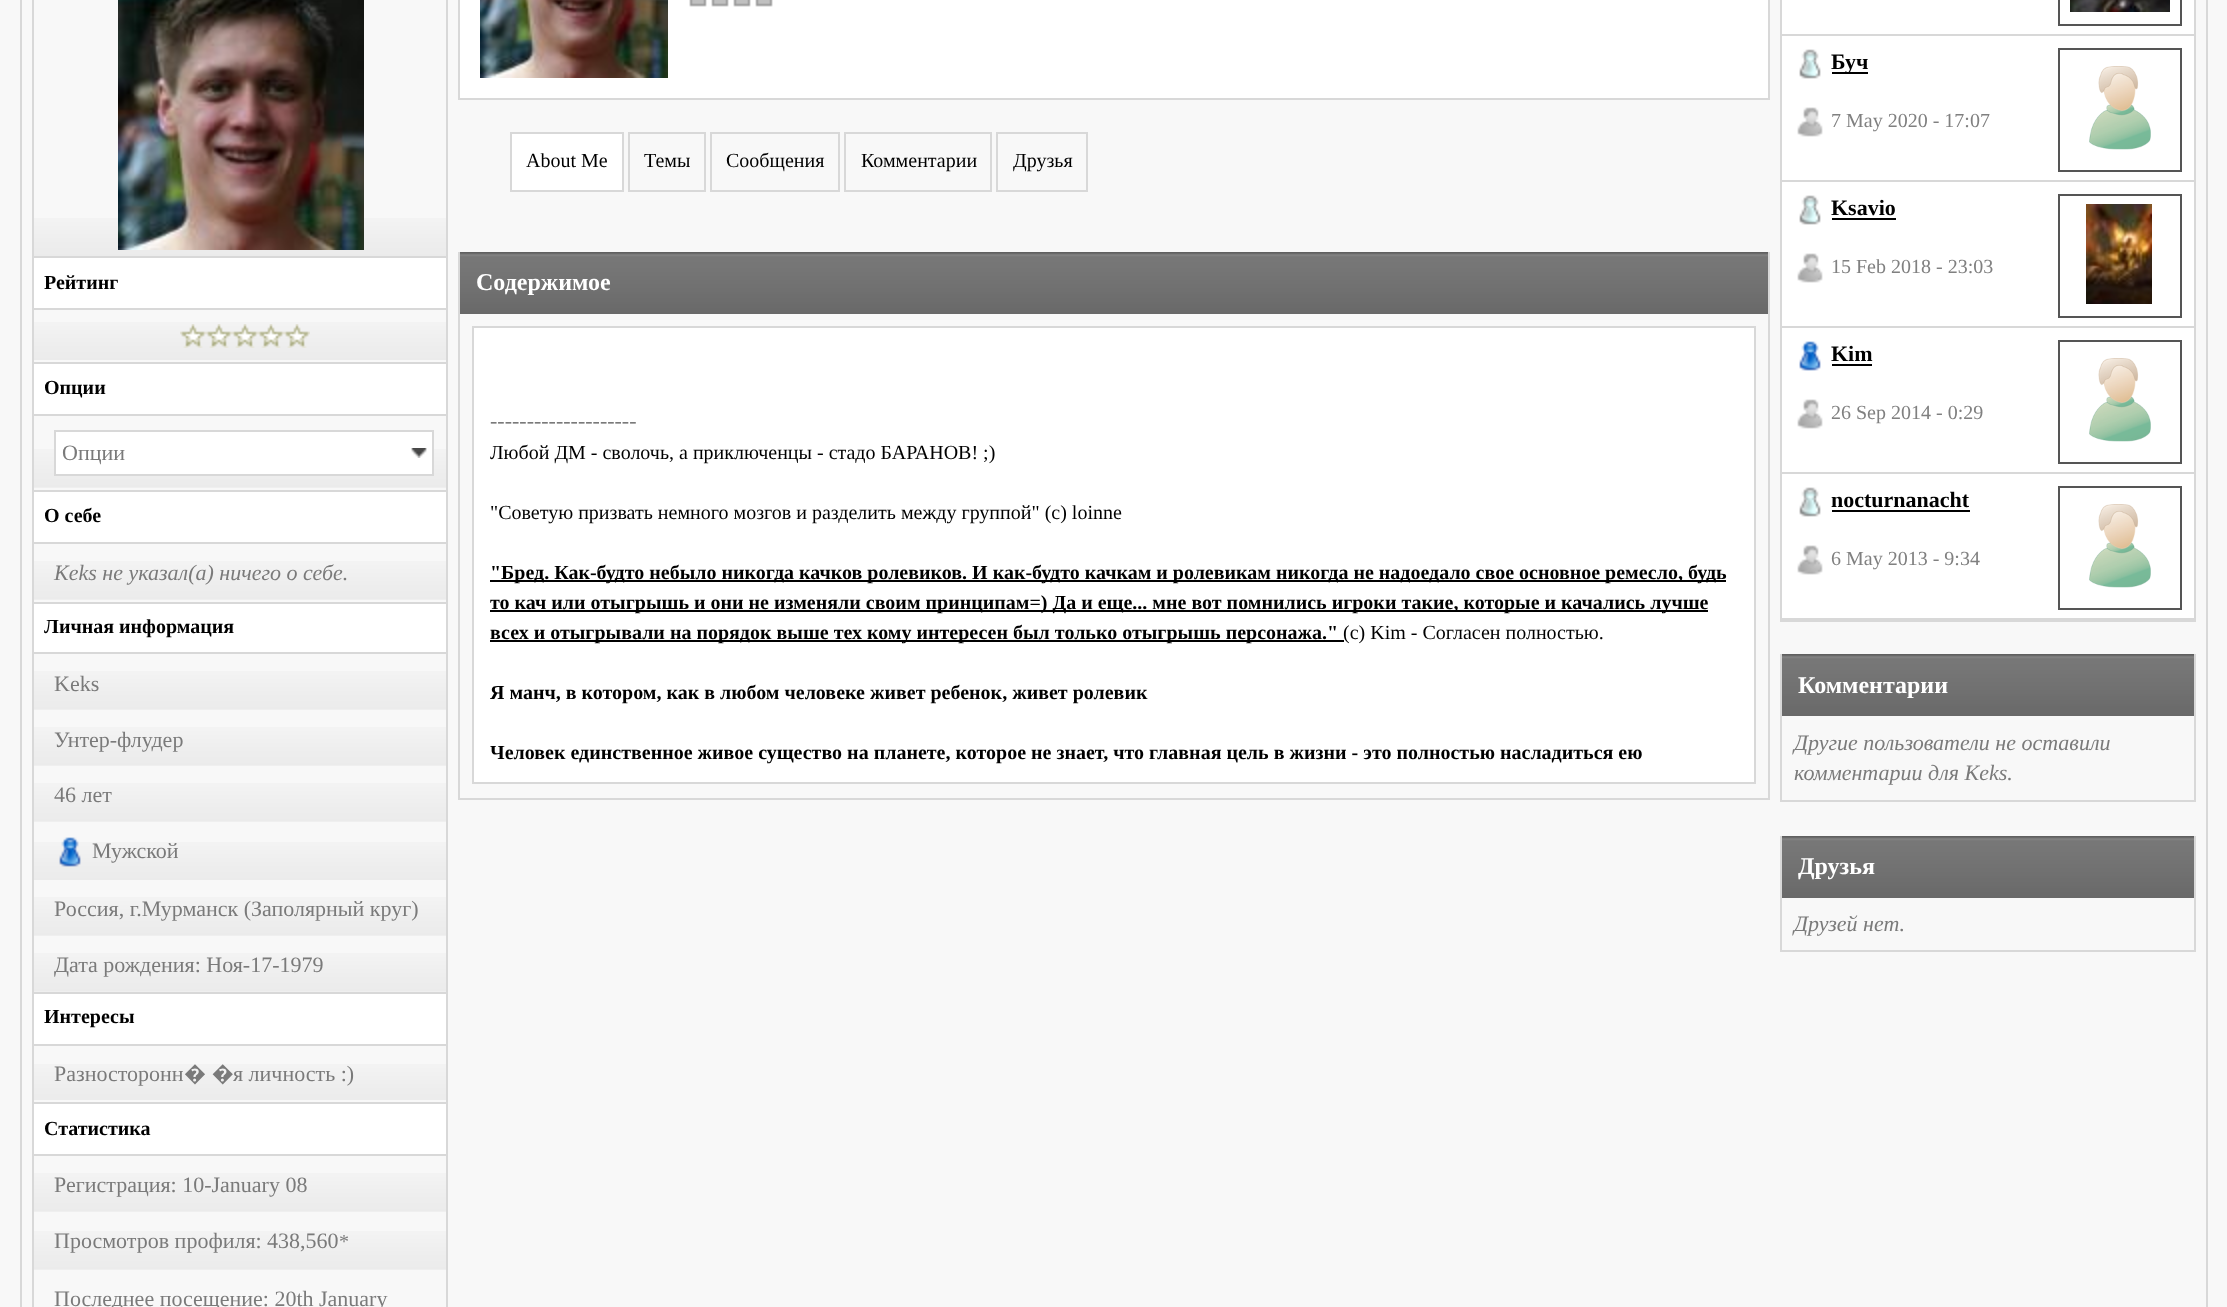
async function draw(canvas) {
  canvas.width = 2227;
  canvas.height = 1307;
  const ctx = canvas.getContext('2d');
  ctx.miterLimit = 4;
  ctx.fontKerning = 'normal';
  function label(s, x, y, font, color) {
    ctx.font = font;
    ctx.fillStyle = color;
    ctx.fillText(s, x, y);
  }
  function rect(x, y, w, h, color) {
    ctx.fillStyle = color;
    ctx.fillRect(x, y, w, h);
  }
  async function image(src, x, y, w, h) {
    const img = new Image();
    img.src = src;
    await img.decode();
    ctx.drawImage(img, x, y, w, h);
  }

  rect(0, 0, 2227, 1307, '#f8f8f8');
  rect(2206, 0, 2, 1307, '#d8d8d8');
  rect(20, 0, 2, 1307, '#d8d8d8');
  rect(446, 0, 2, 1307, '#d8d8d8');
  rect(32, 0, 2, 1307, '#d8d8d8');
  await image('assets/img1.png', 34, 218, 412, 38);
  await image('assets/img2.png', 118, 0, 246, 250);
  rect(34, 258, 412, 50, '#fff');
  rect(34, 256, 412, 2, '#d8d8d8');
  rect(34, 308, 412, 2, '#d8d8d8');
  label('Рейтинг', 44, 289, 'bold 20px Liberation Serif', '#000');
  await image('assets/img1.png', 34, 322, 412, 38);
  await image('assets/img3.png', 180, 324, 26, 24);
  await image('assets/img3.png', 206, 324, 26, 24);
  await image('assets/img3.png', 232, 324, 26, 24);
  await image('assets/img3.png', 258, 324, 26, 24);
  await image('assets/img3.png', 284, 324, 26, 24);
  rect(34, 364, 412, 50, '#fff');
  rect(34, 362, 412, 2, '#d8d8d8');
  rect(34, 414, 412, 2, '#d8d8d8');
  label('Опции', 44, 394, 'bold 20px Liberation Serif', '#000');
  await image('assets/img4.png', 34, 449, 412, 39);
  rect(56, 432, 376, 42, '#fff');
  await image('assets/img5.png', 411, 448, 16, 10);
  ctx.strokeStyle = '#d8d8d8';
  ctx.lineWidth = 2;
  ctx.strokeRect(55, 431, 378, 44);
  label('Опции', 62, 460, '22px Liberation Serif', '#7a7a7a');
  rect(34, 492, 412, 50, '#fff');
  rect(34, 490, 412, 2, '#d8d8d8');
  rect(34, 542, 412, 2, '#d8d8d8');
  label('О себе', 44, 522, 'bold 20px Liberation Serif', '#000');
  await image('assets/img4.png', 34, 561, 412, 39);
  label('Keks не указал(а) ничего о себе.', 54, 580, 'italic 22px Liberation Serif', '#7a7a7a');
  rect(34, 604, 412, 48, '#fff');
  rect(34, 602, 412, 2, '#d8d8d8');
  rect(34, 652, 412, 2, '#d8d8d8');
  label('Личная информация', 44, 633, 'bold 20px Liberation Serif', '#000');
  await image('assets/img4.png', 34, 671, 412, 39);
  label('Keks', 54, 691, '22px Liberation Serif', '#7a7a7a');
  await image('assets/img4.png', 34, 727, 412, 39);
  label('Унтер-флудер', 54, 747, '22px Liberation Serif', '#7a7a7a');
  await image('assets/img4.png', 34, 783, 412, 39);
  label('46 лет', 54, 802, '22px Liberation Serif', '#7a7a7a');
  await image('assets/img1.png', 34, 842, 412, 38);
  await image('assets/img6.png', 59, 837, 22, 30);
  label('Мужской', 92, 858, '22px Liberation Serif', '#7a7a7a');
  await image('assets/img4.png', 34, 897, 412, 39);
  label('Россия, г.Мурманск (Заполярный круг)', 54, 916, '22px Liberation Serif', '#7a7a7a');
  await image('assets/img4.png', 34, 953, 412, 39);
  label('Дата рождения: Ноя-17-1979', 54, 972, '22px Liberation Serif', '#7a7a7a');
  rect(34, 994, 412, 50, '#fff');
  rect(34, 992, 412, 2, '#d8d8d8');
  rect(34, 1044, 412, 2, '#d8d8d8');
  label('Интересы', 44, 1023, 'bold 20px Liberation Serif', '#000');
  await image('assets/img7.png', 34, 1064, 412, 36);
  label('Разносторонн', 54, 1081, '22px Liberation Serif', '#7a7a7a');
  label('� �', 184, 1081, '22px Noto Sans', '#7a7a7a');
  label('я личность :)', 233, 1081, '22px Liberation Serif', '#7a7a7a');
  rect(34, 1104, 412, 50, '#fff');
  rect(34, 1102, 412, 2, '#d8d8d8');
  rect(34, 1154, 412, 2, '#d8d8d8');
  label('Статистика', 44, 1135, 'bold 20px Liberation Serif', '#000');
  await image('assets/img4.png', 34, 1173, 412, 39);
  label('Регистрация: 10-January 08', 54, 1192, '22px Liberation Serif', '#7a7a7a');
  await image('assets/img4.png', 34, 1231, 412, 39);
  label('Просмотров профиля: 438,560', 54, 1248, '22px Liberation Serif', '#7a7a7a');
  label('*', 339, 1248, '20px Liberation Serif', '#808080');
  label('Последнее посещение: 20th January', 54, 1306, '22px Liberation Serif', '#7a7a7a');
  ctx.fillStyle = '#fff';
  ctx.beginPath();
  ctx.rect(459, -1, 1310, 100);
  ctx.fill();
  ctx.stroke();
  await image('assets/img8.png', 480, 0, 188, 78);
  await image('assets/img9.png', 689, 0, 18, 7);
  await image('assets/img9.png', 711, 0, 18, 7);
  await image('assets/img9.png', 733, 0, 18, 7);
  await image('assets/img9.png', 755, 0, 18, 7);
  ctx.beginPath();
  ctx.rect(511, 133, 112, 58);
  ctx.fill();
  ctx.stroke();
  label('About Me', 526, 167, '20px Liberation Serif', '#000');
  ctx.strokeRect(629, 133, 76, 58);
  label('Темы', 644, 167, '20px Liberation Serif', '#000');
  ctx.strokeRect(711, 133, 128, 58);
  label('Сообщения', 726, 167, '20px Liberation Serif', '#000');
  ctx.strokeRect(845, 133, 146, 58);
  label('Комментарии', 861, 167, '20px Liberation Serif', '#000');
  ctx.strokeRect(997, 133, 90, 58);
  label('Друзья', 1013, 167, '20px Liberation Serif', '#000');
  await image('assets/img10.png', 460, 252, 1308, 62);
  rect(1768, 252, 2, 548, '#d8d8d8');
  rect(458, 252, 2, 62, '#d8d8d8');
  label('Содержимое', 476, 290, 'bold 24px Liberation Serif', '#fff');
  rect(458, 798, 1312, 2, '#d8d8d8');
  rect(458, 314, 2, 486, '#d8d8d8');
  ctx.fillStyle = '#fff';
  ctx.beginPath();
  ctx.rect(473, 327, 1282, 456);
  ctx.fill();
  ctx.stroke();
  label('--------------------', 490, 428, '22px Liberation Serif', '#7a7a7a');
  label('Любой ДМ - сволочь, а приключенцы - стадо БАРАНОВ! ;)', 490, 459, '20px Liberation Serif', '#000');
  label('"Советую призвать немного мозгов и разделить между группой" (с) loinne', 490, 519, '20px Liberation Serif', '#000');
  rect(490, 580, 1236, 2, '#000');
  label('"Бред. Как-будто небыло никогда качков ролевиков. И как-будто качкам и ролевикам никогда не надоедало свое основное ремесло, будь', 490, 579, 'bold 20px Liberation Serif', '#000');
  rect(490, 610, 1218, 2, '#000');
  label('то кач или отыгрышь и они не изменяли своим принципам=) Да и еще... мне вот помнились игроки такие, которые и качались лучше', 490, 609, 'bold 20px Liberation Serif', '#000');
  rect(490, 640, 854, 2, '#000');
  label('всех и отыгрывали на порядок выше тех кому интересен был только отыгрышь персонажа."', 490, 639, 'bold 20px Liberation Serif', '#000');
  label('(с) Kim - Согласен полностью.', 1343, 639, '20px Liberation Serif', '#000');
  label('Я манч, в котором, как в любом человеке живет ребенок, живет ролевик', 490, 699, 'bold 20px Liberation Serif', '#000');
  label('Человек единственное живое существо на планете, которое не знает, что главная цель в жизни - это полностью насладиться ею', 490, 759, 'bold 20px Liberation Serif', '#000');
  rect(2194, 0, 2, 622, '#d8d8d8');
  rect(1780, 620, 416, 2, '#d8d8d8');
  rect(1780, 0, 2, 622, '#d8d8d8');
  rect(1782, 0, 412, 34, '#fff');
  rect(1782, 34, 412, 2, '#d8d8d8');
  ctx.strokeStyle = '#555';
  ctx.strokeRect(2059, -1, 122, 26);
  await image('assets/img11.png', 2070, 0, 100, 12);
  rect(1782, 36, 412, 144, '#fff');
  rect(1782, 180, 412, 2, '#d8d8d8');
  await image('assets/img12.png', 1799, 49, 22, 30);
  rect(1832, 72, 36, 2, '#000');
  label('Буч', 1831, 69, 'bold 22px Liberation Serif', '#000');
  ctx.strokeRect(2059, 49, 122, 122);
  await image('assets/img13.png', 2089, 66, 62, 84);
  await image('assets/img14.png', 1797, 107, 26, 30);
  label('7 May 2020 - 17:07', 1831, 127, '20px Liberation Serif', '#808080');
  rect(1782, 182, 412, 144, '#fff');
  rect(1782, 326, 412, 2, '#d8d8d8');
  await image('assets/img12.png', 1799, 195, 22, 30);
  label('Ksavio', 1831, 215, 'bold 22px Liberation Serif', '#000');
  rect(1832, 218, 64, 2, '#000');
  ctx.strokeRect(2059, 195, 122, 122);
  await image('assets/img15.png', 2086, 204, 66, 100);
  await image('assets/img14.png', 1797, 253, 26, 30);
  label('15 Feb 2018 - 23:03', 1831, 273, '20px Liberation Serif', '#808080');
  rect(1782, 328, 412, 144, '#fff');
  rect(1782, 472, 412, 2, '#d8d8d8');
  await image('assets/img16.png', 1799, 341, 22, 30);
  label('Kim', 1831, 361, 'bold 22px Liberation Serif', '#000');
  rect(1832, 364, 40, 2, '#000');
  ctx.strokeRect(2059, 341, 122, 122);
  await image('assets/img13.png', 2089, 358, 62, 84);
  await image('assets/img14.png', 1797, 399, 26, 30);
  label('26 Sep 2014 - 0:29', 1831, 419, '20px Liberation Serif', '#808080');
  rect(1782, 474, 412, 144, '#fff');
  rect(1782, 618, 412, 2, '#d8d8d8');
  await image('assets/img12.png', 1799, 487, 22, 30);
  label('nocturnanacht', 1831, 507, 'bold 22px Liberation Serif', '#000');
  rect(1832, 510, 138, 2, '#000');
  ctx.strokeRect(2059, 487, 122, 122);
  await image('assets/img13.png', 2089, 504, 62, 84);
  await image('assets/img14.png', 1797, 545, 26, 30);
  label('6 May 2013 - 9:34', 1831, 565, '20px Liberation Serif', '#808080');
  rect(2194, 654, 2, 148, '#d8d8d8');
  rect(1780, 800, 416, 2, '#d8d8d8');
  rect(1780, 654, 2, 148, '#d8d8d8');
  await image('assets/img17.png', 1782, 654, 412, 62);
  label('Комментарии', 1798, 693, 'bold 24px Liberation Serif', '#fff');
  label('Другие пользователи не оставили', 1794, 750, 'italic 22px Liberation Serif', '#7a7a7a');
  label('комментарии для Keks.', 1794, 780, 'italic 22px Liberation Serif', '#7a7a7a');
  rect(2194, 836, 2, 116, '#d8d8d8');
  rect(1780, 950, 416, 2, '#d8d8d8');
  rect(1780, 836, 2, 116, '#d8d8d8');
  await image('assets/img17.png', 1782, 836, 412, 62);
  label('Друзья', 1798, 874, 'bold 24px Liberation Serif', '#fff');
  label('Друзей нет.', 1794, 931, 'italic 22px Liberation Serif', '#7a7a7a');
}

draw(document.querySelector('canvas'));
